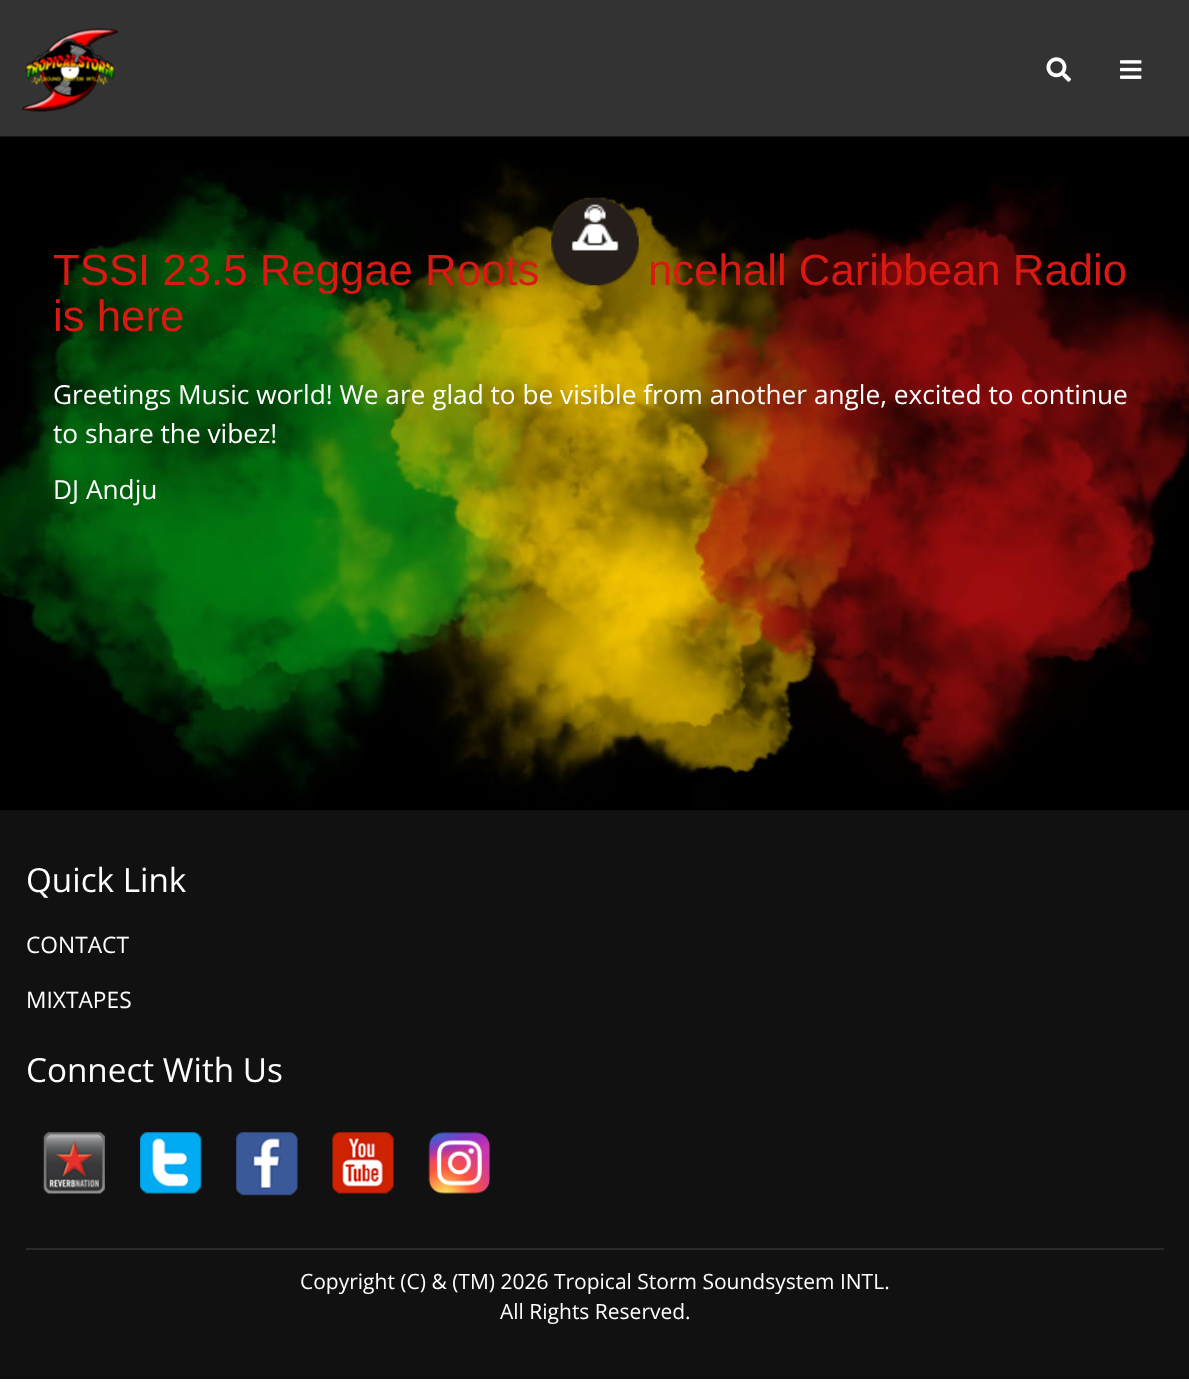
async function draw(canvas) {
  canvas.width = 1189;
  canvas.height = 1382;
  const ctx = canvas.getContext('2d');
  ctx.miterLimit = 4;
  ctx.fontKerning = 'normal';
  function label(s, x, y, font, color) {
    ctx.font = font;
    ctx.fillStyle = color;
    ctx.fillText(s, x, y);
  }
  function rect(x, y, w, h, color) {
    ctx.fillStyle = color;
    ctx.fillRect(x, y, w, h);
  }
  async function image(src, x, y, w, h) {
    const img = new Image();
    img.src = src;
    await img.decode();
    ctx.drawImage(img, x, y, w, h);
  }

  rect(0, 0, 1189, 1382, '#fff');
  rect(0, 810, 1189, 569, '#111');
  await image('assets/img4.png', 0, 136, 1189, 675);
  rect(0, 0, 1189, 137, '#000000cc');
  await image('assets/img1.png', 22, 28, 96, 84);
  await image('assets/img2.png', 1046, 57, 25, 25);
  await image('assets/img3.png', 1120, 60, 22, 19);
  await image('assets/img5.png', 551, 197, 88, 89);
  label('TSSI 23.5 Reggae Roots', 53, 285, '43.75px Liberation Sans', '#d91912');
  label('ncehall Caribbean Radio', 648, 285, '43.75px Liberation Sans', '#d91912');
  label('is here', 53, 331, '43.75px Liberation Sans', '#d91912');
  label('Greetings Music world! We are glad to be visible from another angle, excited to continue', 53, 404, '26.25px Open Sans', '#fff');
  label('to share the vibez!', 53, 443, '26.25px Open Sans', '#fff');
  label('DJ Andju', 53, 499, '26.25px Open Sans', '#fff');
  label('Quick Link', 26, 892, '33.25px Open Sans', '#fff');
  label('CONTACT', 26, 953, '22.75px Open Sans', '#fff');
  label('MIXTAPES', 26, 1008, '22.75px Open Sans', '#fff');
  label('Connect With Us', 26, 1082, '33.25px Open Sans', '#fff');
  await image('assets/img6.png', 43, 1132, 62, 62);
  await image('assets/img7.png', 140, 1132, 62, 62);
  await image('assets/img8.png', 236, 1132, 62, 64);
  await image('assets/img9.png', 332, 1132, 62, 62);
  await image('assets/img10.png', 428, 1132, 62, 62);
  rect(26, 1248, 1138, 2, '#292929');
  label('Copyright (C) & (TM) 2026 Tropical Storm Soundsystem INTL.', 300, 1289, '21px Open Sans', '#fff');
  label('All Rights Reserved.', 500, 1319, '21px Open Sans', '#fff');
}

draw(document.querySelector('canvas'));
